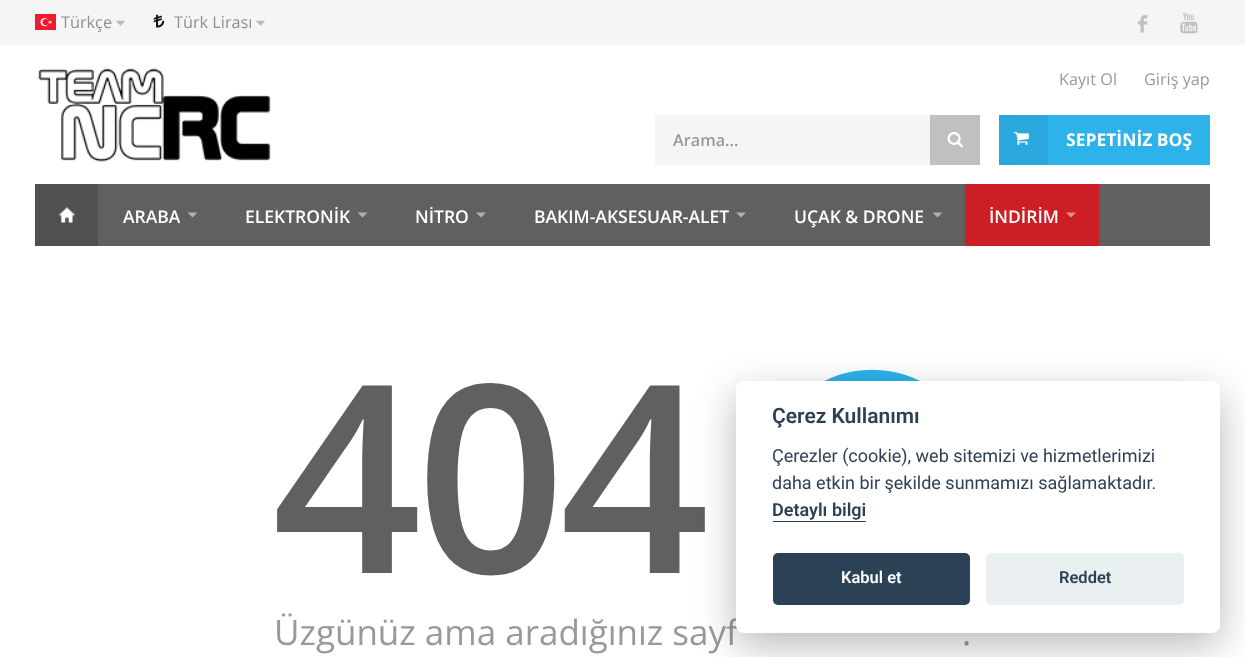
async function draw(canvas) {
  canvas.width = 1245;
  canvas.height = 657;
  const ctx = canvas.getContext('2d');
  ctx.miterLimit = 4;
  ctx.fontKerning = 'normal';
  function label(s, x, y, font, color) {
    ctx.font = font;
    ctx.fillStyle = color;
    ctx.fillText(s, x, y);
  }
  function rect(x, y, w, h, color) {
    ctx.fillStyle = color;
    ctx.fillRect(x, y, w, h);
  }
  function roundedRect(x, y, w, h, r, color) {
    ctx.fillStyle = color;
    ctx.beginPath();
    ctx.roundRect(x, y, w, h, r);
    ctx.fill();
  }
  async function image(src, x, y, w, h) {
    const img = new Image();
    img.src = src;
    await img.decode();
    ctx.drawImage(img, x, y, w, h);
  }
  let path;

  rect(0, 0, 1245, 657, '#fff');
  rect(0, 0, 1245, 45, '#f5f5f5');
  await image('assets/img1.png', 35, 14, 21, 16);
  label('Türkçe', 61, 28, '16.25px Open Sans', '#909090');
  await image('assets/img2.png', 116, 20, 9, 6);
  await image('assets/img3.png', 153, 14, 12, 14);
  label('Türk Lirası', 174, 28, '16.25px Open Sans', '#909090');
  await image('assets/img2.png', 256, 20, 9, 6);
  await image('assets/img4.png', 1137, 15, 11, 18);
  await image('assets/img5.png', 1180, 12, 18, 22);
  await image('assets/img6.png', 38, 68, 233, 94);
  label('Kayıt Ol', 1059, 85, '16.25px Open Sans', '#999');
  label('Giriş yap', 1144, 85, '16.25px Open Sans', '#999');
  rect(655, 115, 275, 50, '#f5f5f5');
  label('Arama...', 673, 146, '600 16.25px Open Sans', '#999');
  rect(930, 115, 50, 50, '#c0c0c0');
  await image('assets/img7.png', 947, 132, 16, 16);
  rect(1048, 115, 162, 50, '#2db2ea');
  rect(999, 115, 49, 50, '#2aa7dc');
  await image('assets/img8.png', 1013, 132, 16, 13);
  label('SEPETİNİZ BOŞ', 1066, 146, 'bold 17.5px Open Sans', '#fff');
  rect(98, 184, 1112, 62, '#606060');
  rect(35, 184, 63, 62, '#505050');
  await image('assets/img9.png', 58, 207, 17, 16);
  label('ARABA', 123, 223, '600 17.5px Open Sans', '#fff');
  ctx.fillStyle = '#b0b0b0';
  path = new Path2D('M187.5 212.5H197.5L192.5 217.5Z');
  ctx.fill(path);
  label('ELEKTRONİK', 245, 223, '600 17.5px Open Sans', '#fff');
  ctx.fillStyle = '#b0b0b0';
  path = new Path2D('M357.5 212.5H367.5L362.5 217.5Z');
  ctx.fill(path);
  label('NİTRO', 415, 223, '600 17.5px Open Sans', '#fff');
  ctx.fillStyle = '#b0b0b0';
  path = new Path2D('M476 212.5H486L481 217.5Z');
  ctx.fill(path);
  label('BAKIM-AKSESUAR-ALET', 534, 223, '600 17.5px Open Sans', '#fff');
  ctx.fillStyle = '#b0b0b0';
  path = new Path2D('M736 212.5H746L741 217.5Z');
  ctx.fill(path);
  label('UÇAK & DRONE', 794, 223, '600 17.5px Open Sans', '#fff');
  ctx.fillStyle = '#b0b0b0';
  path = new Path2D('M932.5 212.5H942.5L937.5 217.5Z');
  ctx.fill(path);
  rect(965, 184, 134, 62, '#cb1f25');
  label('İNDİRİM', 989, 223, '600 17.5px Open Sans', '#fff');
  ctx.fillStyle = '#e58f92';
  path = new Path2D('M1066 212.5H1076L1071 217.5Z');
  ctx.fill(path);
  await image('assets/img10.png', 824, 369, 96, 12);
  ctx.letterSpacing = '-6px';
  label('404', 272, 573, '600 262px Open Sans', '#606060');
  ctx.letterSpacing = '0px';
  label('Üzgünüz ama aradığınız sayf', 274, 645, '35px Open Sans', '#999');
  label('.', 962, 645, '35px Open Sans', '#999');
  ctx.fillStyle = '#02020347';
  ctx.filter = 'blur(19px)';
  ctx.beginPath();
  ctx.roundRect(736, 394, 484, 251, 8);
  ctx.fill();
  ctx.filter = 'none';
  roundedRect(736, 381, 484, 252, 8, '#fff');
  label('Çerez Kullanımı', 772, 423, '600 21px Roboto', '#2d4156');
  label('Çerezler (cookie), web sitemizi ve hizmetlerimizi', 772, 462, '18px Roboto', '#2d4156');
  label('daha etkin bir şekilde sunmamızı sağlamaktadır.', 772, 489, '18px Roboto', '#2d4156');
  label('Detaylı bilgi', 772, 516, '600 18px Roboto', '#2d4156');
  rect(773, 521, 93, 1, '#2d4156');
  roundedRect(773, 553, 197, 52, 5, '#2d4156');
  label('Kabul et', 841, 583, '600 16.5px Roboto', '#fff');
  roundedRect(986, 553, 198, 52, 5, '#eaeff2');
  label('Reddet', 1059, 583, '600 16.5px Roboto', '#2d4156');
}

draw(document.querySelector('canvas'));
